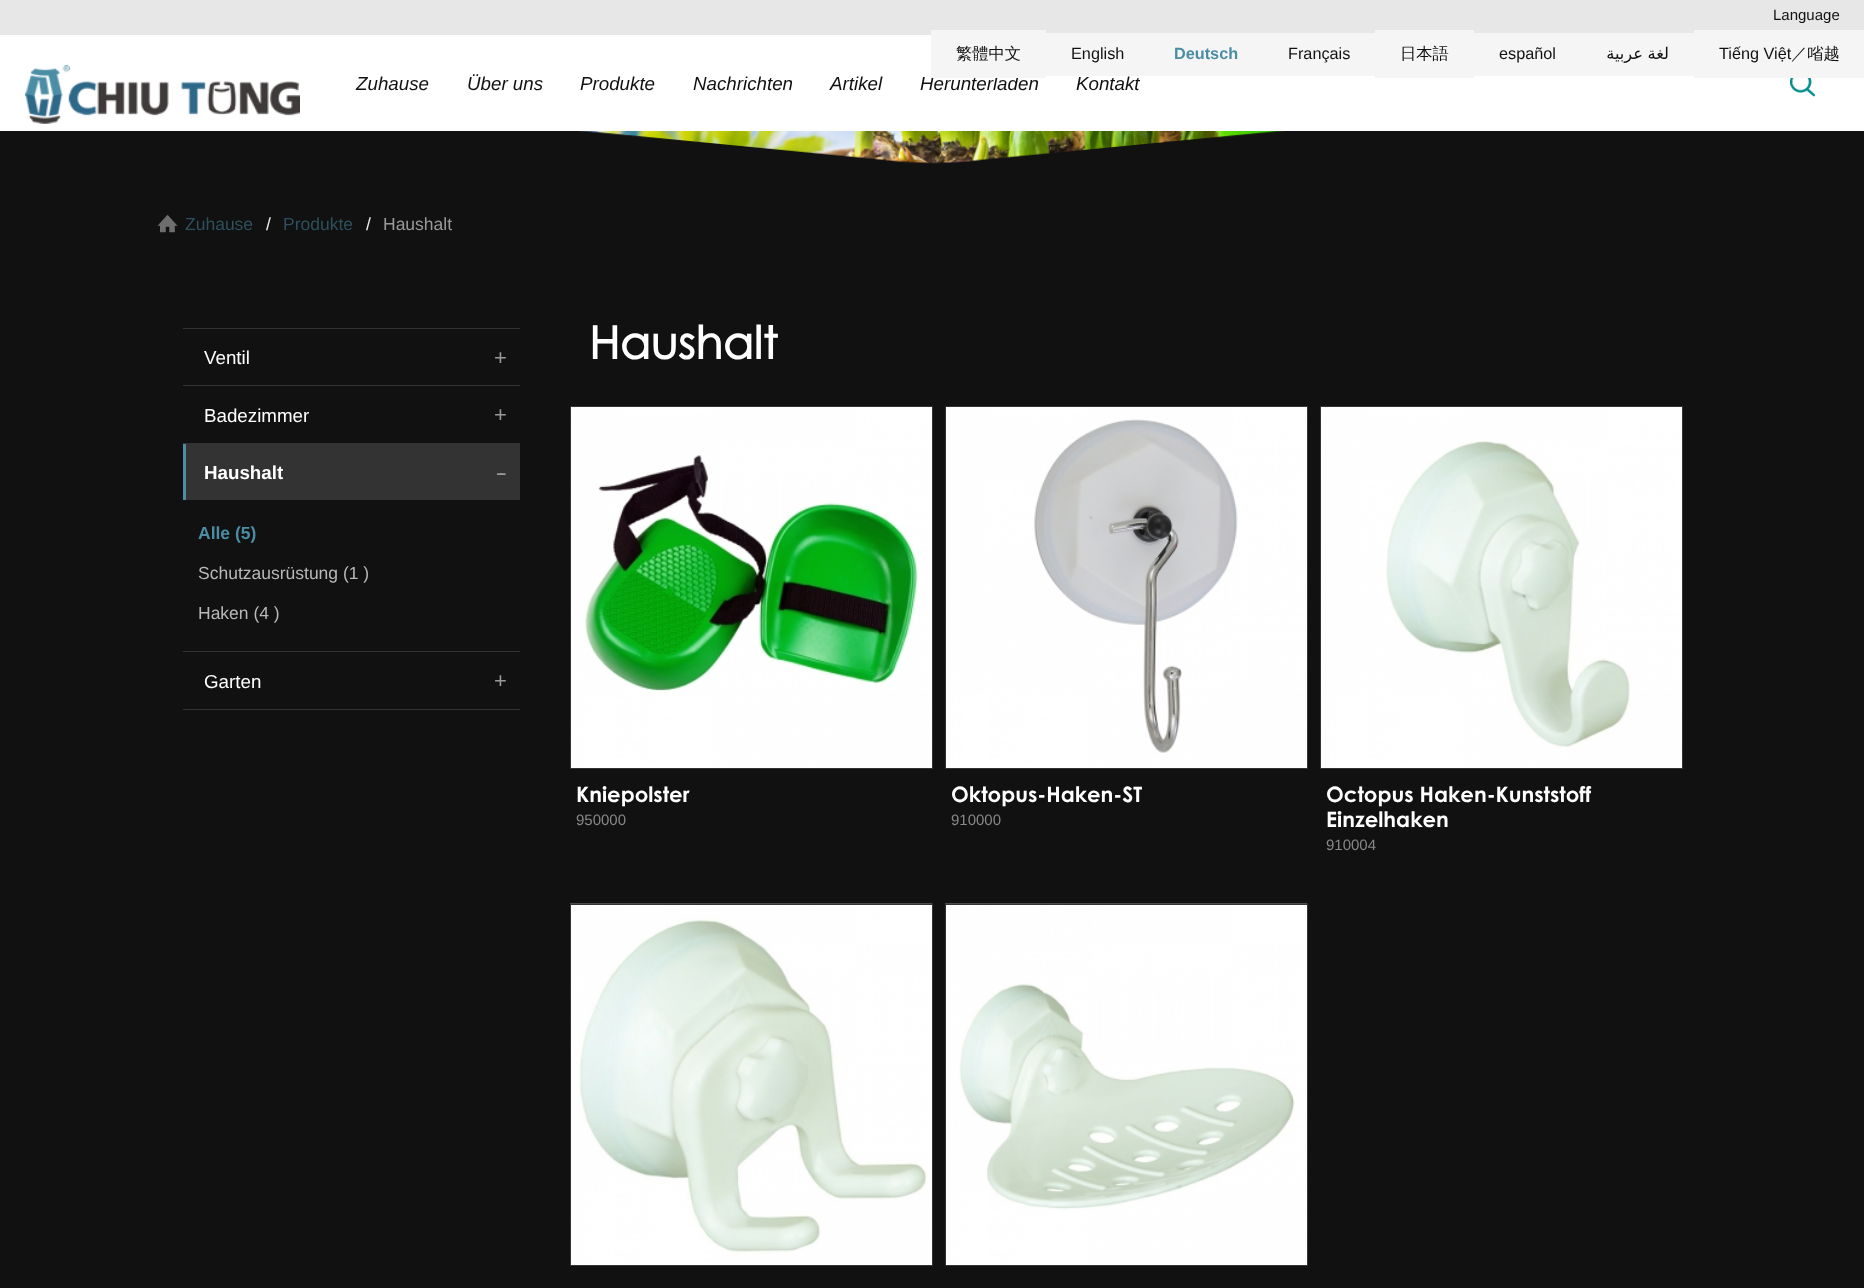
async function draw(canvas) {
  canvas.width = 1864;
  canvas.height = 1288;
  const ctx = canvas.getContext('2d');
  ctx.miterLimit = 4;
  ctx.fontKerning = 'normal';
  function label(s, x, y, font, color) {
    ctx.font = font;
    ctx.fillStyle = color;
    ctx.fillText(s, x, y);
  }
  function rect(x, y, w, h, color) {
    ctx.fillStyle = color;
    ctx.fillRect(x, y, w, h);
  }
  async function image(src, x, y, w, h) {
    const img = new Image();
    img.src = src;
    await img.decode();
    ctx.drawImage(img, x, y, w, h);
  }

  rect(0, 0, 1864, 1288, '#111');
  rect(0, 35, 1864, 96, '#fff');
  await image('assets/img1.png', 25, 64, 275, 60);
  rect(0, 0, 1864, 35, '#e7e7e7');
  label('Language', 1773, 20, '15px Liberation Sans', '#111');
  rect(1079, 76, 60, 2, '#ffffff1a');
  label('Herunterladen', 920, 90, 'italic 18.75px Liberation Sans', '#111');
  rect(931, 30, 115, 48, '#f5f5f5');
  label('繁體中文', 956, 59, '500 16.25px WenQuanYi Zen Hei', '#111');
  rect(1046, 33, 329, 43, '#f5f5f5');
  label('English', 1071, 59, '16.25px Liberation Sans', '#111');
  label('Deutsch', 1174, 59, 'bold 16.25px Liberation Sans', '#4b8da5');
  label('Français', 1288, 59, '16.25px Liberation Sans', '#111');
  rect(1375, 30, 99, 48, '#f5f5f5');
  label('日本語', 1400, 59, '500 16.25px WenQuanYi Zen Hei', '#111');
  rect(1474, 33, 220, 43, '#f5f5f5');
  label('español', 1499, 59, '16.25px Liberation Sans', '#111');
  ctx.direction = 'rtl';
  label('عربية', 1643, 59, '16.25px DejaVu Sans', '#111');
  label('لغة', 1669, 59, '16.25px DejaVu Sans', '#111');
  rect(1694, 30, 170, 48, '#f5f5f5');
  ctx.direction = 'ltr';
  label('Tiếng Việt', 1719, 59, '16.25px Liberation Sans', '#111');
  label('／㗂越', 1791, 59, '500 16.25px WenQuanYi Zen Hei', '#111');
  label('Zuhause', 356, 90, 'italic 18.75px Liberation Sans', '#111');
  label('Über uns', 467, 90, 'italic 18.75px Liberation Sans', '#111');
  label('Produkte', 580, 90, 'italic 18.75px Liberation Sans', '#111');
  label('Nachrichten', 693, 90, 'italic 18.75px Liberation Sans', '#111');
  label('Artikel', 830, 90, 'italic 18.75px Liberation Sans', '#111');
  label('Kontakt', 1076, 90, 'italic 18.75px Liberation Sans', '#111');
  await image('assets/img2.png', 1790, 78, 25, 19);
  await image('assets/img4.png', 578, 131, 709, 33);
  await image('assets/img3.png', 0, 131, 1864, 50);
  await image('assets/img5.png', 157, 214, 21, 19);
  label('Zuhause', 185, 230, '17.5px Liberation Sans', '#2e4f5b');
  label('/', 266, 230, '17.5px Liberation Sans', '#eee');
  label('Produkte', 283, 230, '17.5px Liberation Sans', '#2e4f5b');
  label('/', 366, 230, '17.5px Liberation Sans', '#eee');
  label('Haushalt', 383, 230, '17.5px Liberation Sans', '#999');
  rect(183, 328, 337, 1, '#333');
  rect(183, 385, 337, 1, '#333');
  label('Ventil', 204, 364, '18.75px Liberation Sans', '#fff');
  label('+', 494, 365, '22px Liberation Sans', '#999');
  rect(183, 443, 337, 1, '#333');
  label('Badezimmer', 204, 422, '18.75px Liberation Sans', '#fff');
  label('+', 494, 422, '22px Liberation Sans', '#999');
  rect(183, 651, 337, 1, '#333');
  rect(186, 444, 334, 56, '#333');
  rect(183, 444, 3, 56, '#4b8da5');
  label('Haushalt', 204, 479, 'bold 18.75px Liberation Sans', '#fff');
  ctx.letterSpacing = '-4px';
  label('--', 496, 480, '22px Liberation Sans', '#999');
  ctx.letterSpacing = '0px';
  label('Alle (5)', 198, 539, 'bold 17.5px Liberation Sans', '#4b8da5');
  label('Schutzausrüstung (1 )', 198, 579, '17.5px Liberation Sans', '#b8b8b8');
  label('Haken (4 )', 198, 619, '17.5px Liberation Sans', '#b8b8b8');
  rect(183, 709, 337, 1, '#333');
  label('Garten', 204, 688, '18.75px Liberation Sans', '#fff');
  label('+', 494, 688, '22px Liberation Sans', '#999');
  label('Haushalt', 589, 359, 'bold 45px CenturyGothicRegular', '#fff');
  await image('assets/img6.png', 571, 407, 361, 361);
  ctx.strokeStyle = '#333';
  ctx.strokeRect(570.5, 406.5, 362, 362);
  label('Kniepolster', 576, 802, 'bold 21.25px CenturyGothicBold', '#fff');
  label('950000', 576, 825, '15px Liberation Sans', '#888');
  await image('assets/img7.png', 946, 407, 361, 361);
  ctx.strokeRect(945.5, 406.5, 362, 362);
  label('Oktopus-Haken-ST', 951, 802, 'bold 21.25px CenturyGothicBold', '#fff');
  label('910000', 951, 825, '15px Liberation Sans', '#888');
  await image('assets/img8.png', 1321, 407, 361, 361);
  ctx.strokeRect(1320.5, 406.5, 362, 362);
  label('Octopus Haken-Kunststoff', 1326, 802, 'bold 21.25px CenturyGothicBold', '#fff');
  label('Einzelhaken', 1326, 827, 'bold 21.25px CenturyGothicBold', '#fff');
  label('910004', 1326, 850, '15px Liberation Sans', '#888');
  await image('assets/img9.png', 570, 903, 363, 362);
  ctx.strokeRect(570.5, 904.5, 362, 361);
  await image('assets/img10.png', 945, 903, 363, 362);
  ctx.strokeRect(945.5, 904.5, 362, 361);
}

draw(document.querySelector('canvas'));
